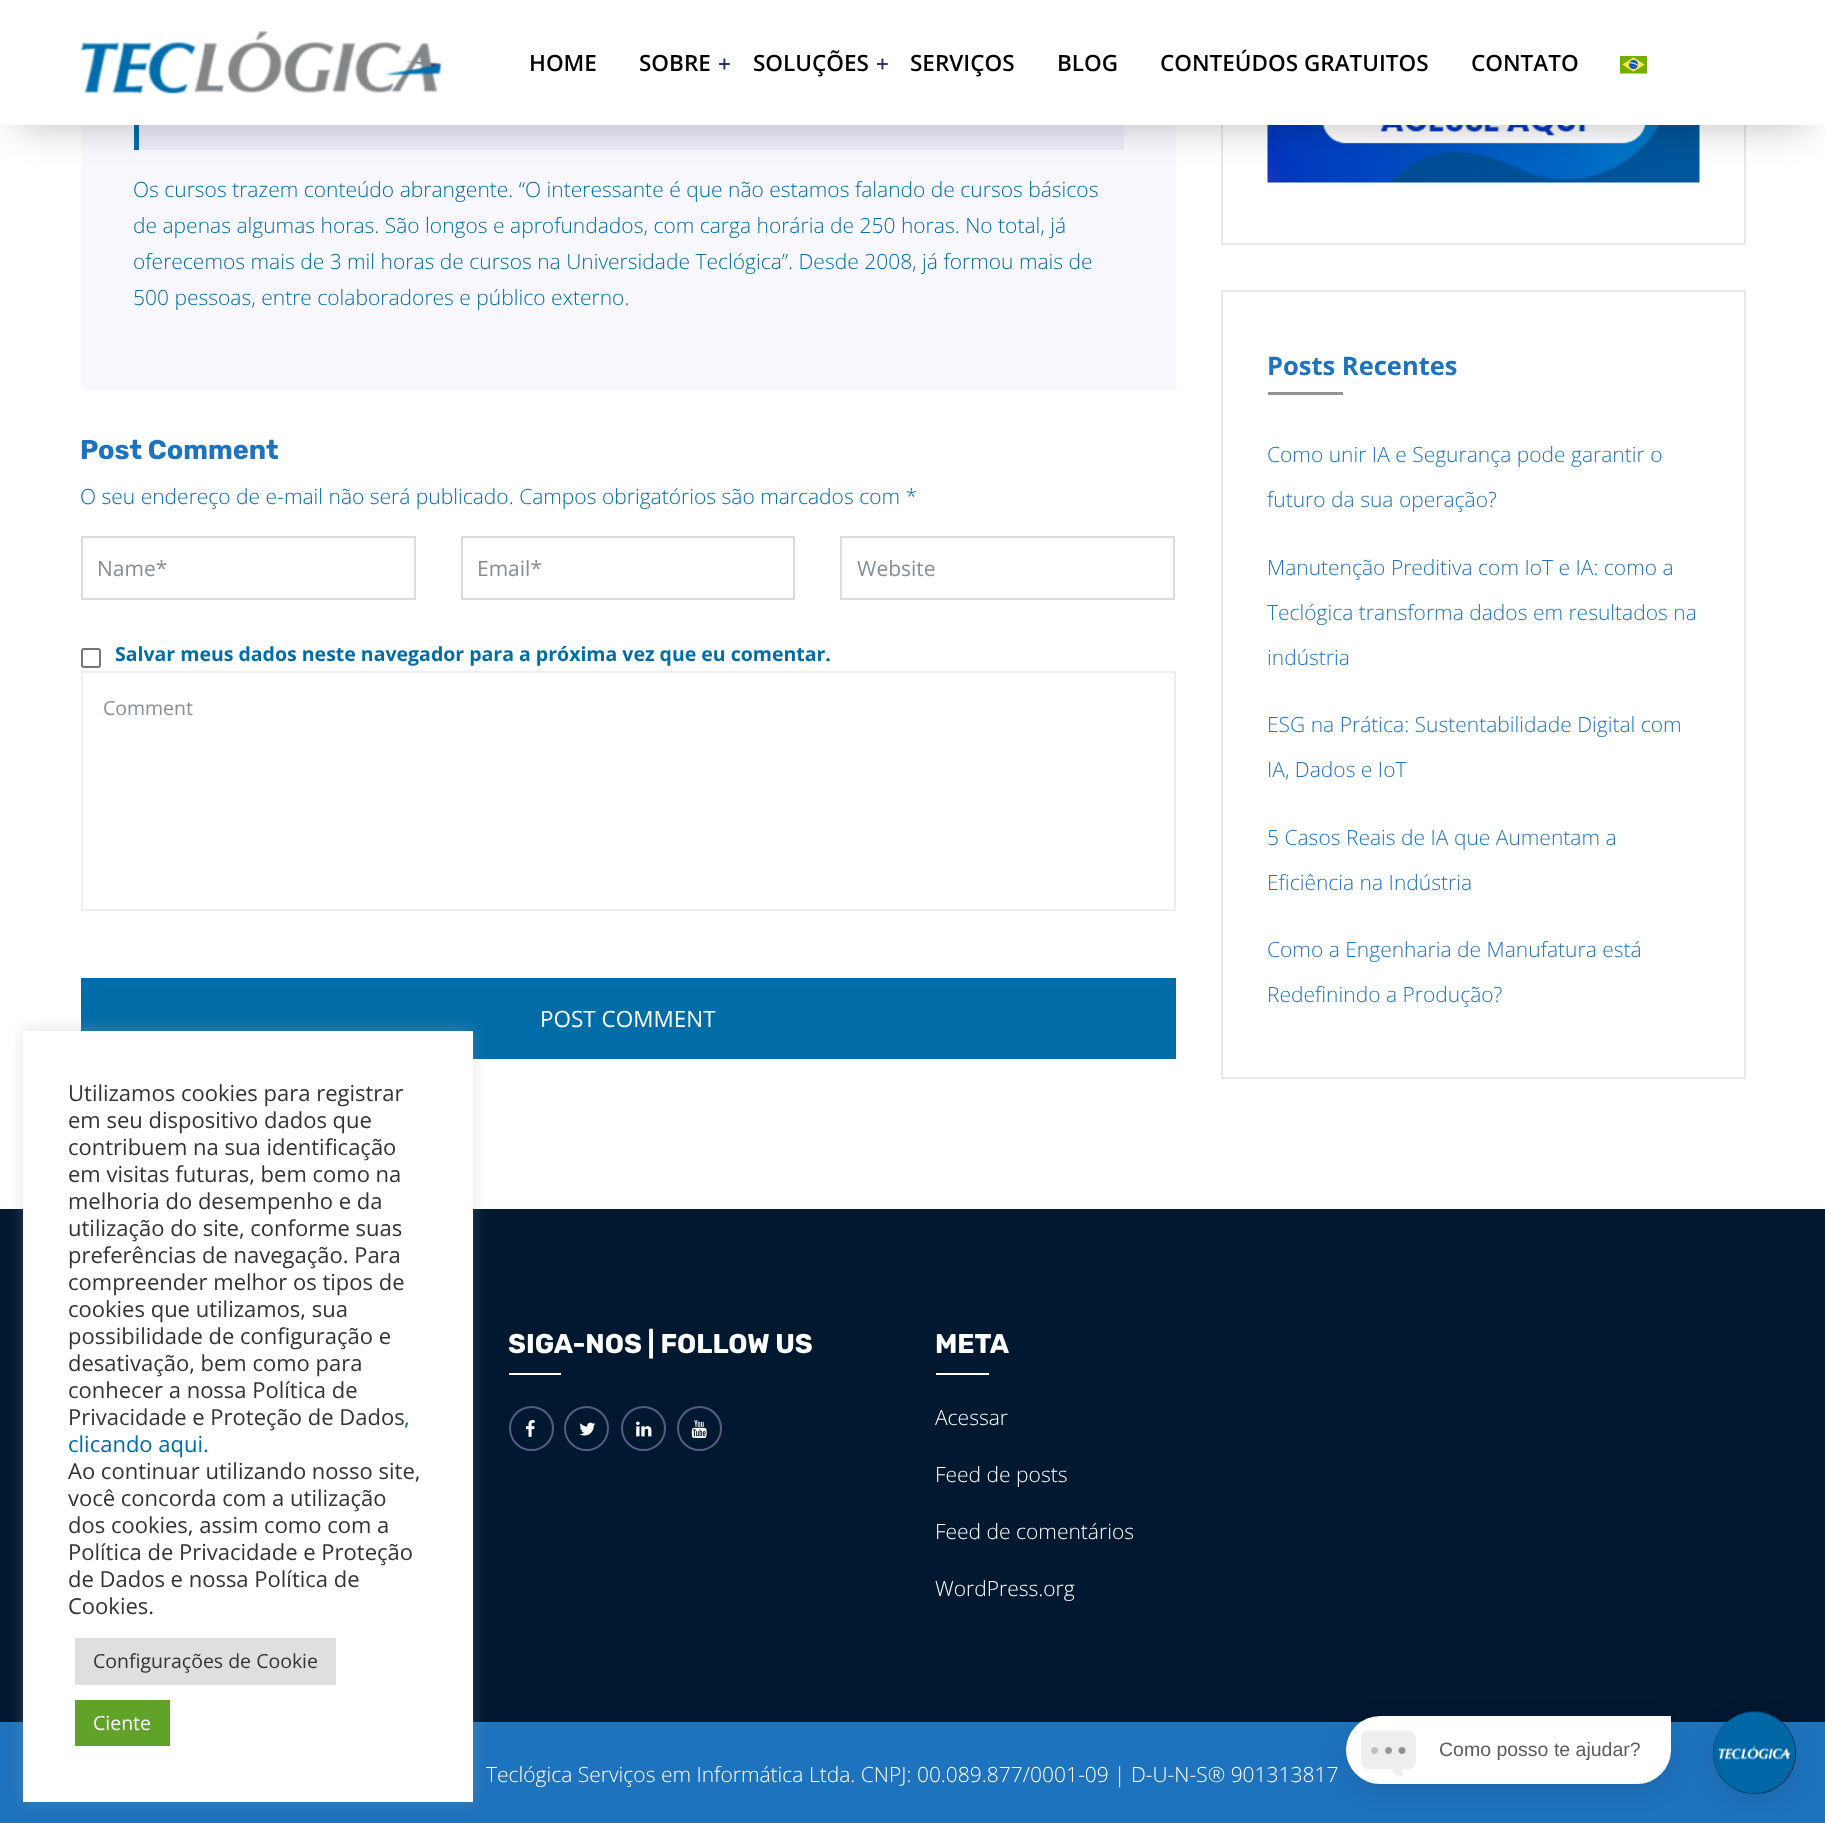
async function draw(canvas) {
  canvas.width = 1825;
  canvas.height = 1823;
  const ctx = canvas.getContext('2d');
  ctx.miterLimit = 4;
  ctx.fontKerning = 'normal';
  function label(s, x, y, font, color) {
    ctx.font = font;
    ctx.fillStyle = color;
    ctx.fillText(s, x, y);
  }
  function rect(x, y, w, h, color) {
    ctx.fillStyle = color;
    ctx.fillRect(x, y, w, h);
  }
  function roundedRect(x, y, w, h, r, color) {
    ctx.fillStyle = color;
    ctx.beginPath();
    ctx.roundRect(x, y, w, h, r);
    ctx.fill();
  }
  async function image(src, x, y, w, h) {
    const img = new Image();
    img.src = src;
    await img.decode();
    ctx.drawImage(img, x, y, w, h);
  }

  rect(0, 0, 1825, 1823, '#fff');
  rect(81, 125, 1095, 265, '#f9f8fe');
  rect(139, 125, 985, 25, '#efedfb');
  rect(134, 125, 5, 25, '#006da8');
  ctx.strokeStyle = '#e8e8e8';
  ctx.lineWidth = 2;
  ctx.strokeRect(1222, -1, 523, 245);
  await image('assets/img3.png', 1267, 125, 433, 58);
  ctx.fillStyle = '#00000040';
  ctx.filter = 'blur(19px)';
  ctx.beginPath();
  ctx.rect(18, 38, 1790, 88);
  ctx.fill();
  ctx.filter = 'none';
  rect(0, 0, 1825, 125, '#fff');
  await image('assets/img1.png', 80, 31, 361, 63);
  label('HOME', 529, 71, '600 22.5px Open Sans', '#000');
  label('SOBRE', 639, 71, '600 22.5px Open Sans', '#000');
  label('+', 718, 72, '600 22.5px Open Sans', '#29326f');
  label('SOLUÇÕES', 753, 71, '600 22.5px Open Sans', '#000');
  label('+', 876, 72, '600 22.5px Open Sans', '#29326f');
  label('SERVIÇOS', 910, 71, '600 22.5px Open Sans', '#000');
  label('BLOG', 1057, 71, '600 22.5px Open Sans', '#000');
  label('CONTEÚDOS GRATUITOS', 1160, 71, '600 22.5px Open Sans', '#000');
  label('CONTATO', 1471, 71, '600 22.5px Open Sans', '#000');
  await image('assets/img2.png', 1620, 56, 27, 18);
  label('Os cursos trazem conteúdo abrangente. “O interessante é que não estamos falando de cursos básicos', 133, 197, '300 21px Open Sans', '#006da8');
  label('de apenas algumas horas. São longos e aprofundados, com carga horária de 250 horas. No total, já', 133, 233, '300 21px Open Sans', '#006da8');
  label('oferecemos mais de 3 mil horas de cursos na Universidade Teclógica”. Desde 2008, já formou mais de', 133, 269, '300 21px Open Sans', '#006da8');
  label('500 pessoas, entre colaboradores e público externo.', 133, 305, '300 21px Open Sans', '#006da8');
  label('Post Comment', 80, 459, 'bold 27px Rubik', '#1e73be');
  label('O seu endereço de e-mail não será publicado. Campos obrigatórios são marcados com *', 80, 504, '300 21px Open Sans', '#006da8');
  ctx.strokeStyle = '#dcdcdc';
  ctx.strokeRect(82, 537, 333, 62);
  label('Name*', 97, 576, '21px Open Sans', '#868e96');
  ctx.strokeRect(462, 537, 332, 62);
  label('Email*', 477, 576, '21px Open Sans', '#868e96');
  ctx.strokeRect(841, 537, 333, 62);
  label('Website', 857, 576, '21px Open Sans', '#868e96');
  ctx.beginPath();
  ctx.roundRect(82, 649, 18, 18, 2);
  ctx.strokeStyle = '#767676';
  ctx.stroke();
  label('Salvar meus dados neste navegador para a próxima vez que eu comentar.', 115, 661, 'bold 19.5px Open Sans', '#006da8');
  ctx.strokeStyle = '#eee';
  ctx.strokeRect(82, 672, 1093, 238);
  label('Comment', 103, 715, '19.5px Open Sans', '#868e96');
  rect(81, 978, 1095, 81, '#006da8');
  label('POST COMMENT', 540, 1027, '22.5px Open Sans', '#fff');
  ctx.strokeStyle = '#e8e8e8';
  ctx.strokeRect(1222, 291, 523, 787);
  label('Posts Recentes', 1267, 375, 'bold 25.5px Open Sans', '#1e73be');
  rect(1268, 392, 75, 3, '#929596');
  label('Como unir IA e Segurança pode garantir o', 1267, 462, '300 21px Open Sans', '#1e73be');
  label('futuro da sua operação?', 1267, 507, '300 21px Open Sans', '#1e73be');
  label('Manutenção Preditiva com IoT e IA: como a', 1267, 575, '300 21px Open Sans', '#1e73be');
  label('Teclógica transforma dados em resultados na', 1267, 620, '300 21px Open Sans', '#1e73be');
  label('indústria', 1267, 665, '300 21px Open Sans', '#1e73be');
  label('ESG na Prática: Sustentabilidade Digital com', 1267, 732, '300 21px Open Sans', '#1e73be');
  label('IA, Dados e IoT', 1267, 777, '300 21px Open Sans', '#1e73be');
  label('5 Casos Reais de IA que Aumentam a', 1267, 845, '300 21px Open Sans', '#1e73be');
  label('Eficiência na Indústria', 1267, 890, '300 21px Open Sans', '#1e73be');
  label('Como a Engenharia de Manufatura está', 1267, 957, '300 21px Open Sans', '#1e73be');
  label('Redefinindo a Produção?', 1267, 1002, '300 21px Open Sans', '#1e73be');
  rect(0, 1722, 1825, 101, '#1e73be');
  rect(0, 1209, 1825, 513, '#001830');
  label('SIGA-NOS | FOLLOW US', 508, 1353, 'bold 27px Rubik', '#fff');
  rect(509, 1373, 52, 2, '#fff');
  ctx.beginPath();
  ctx.arc(531.5, 1428.5, 21.5, 0, 2 * Math.PI);
  ctx.strokeStyle = '#565c84';
  ctx.stroke();
  await image('assets/img4.png', 525, 1420, 10, 17);
  ctx.beginPath();
  ctx.arc(586.5, 1428.5, 21.5, 0, 2 * Math.PI);
  ctx.stroke();
  await image('assets/img5.png', 579, 1422, 17, 14);
  ctx.beginPath();
  ctx.arc(643.5, 1428.5, 21.5, 0, 2 * Math.PI);
  ctx.stroke();
  await image('assets/img6.png', 636, 1421, 16, 16);
  ctx.beginPath();
  ctx.arc(699.5, 1428.5, 21.5, 0, 2 * Math.PI);
  ctx.stroke();
  await image('assets/img7.png', 691, 1420, 16, 19);
  label('META', 935, 1353, 'bold 27px Rubik', '#fff');
  rect(936, 1373, 53, 2, '#fff');
  label('Acessar', 935, 1425, '300 21px Open Sans', '#fff');
  label('Feed de posts', 935, 1482, '300 21px Open Sans', '#fff');
  label('Feed de comentários', 935, 1539, '300 21px Open Sans', '#fff');
  label('WordPress.org', 935, 1596, '300 21px Open Sans', '#fff');
  label('Teclógica Serviços em Informática Ltda. CNPJ: 00.089.877/0001-09 | D-U-N-S® 901313817', 486, 1782, '300 21px Open Sans', '#fff');
  ctx.fillStyle = '#acabab4d';
  ctx.filter = 'blur(7.5px)';
  ctx.beginPath();
  ctx.rect(23, 1029, 450, 771);
  ctx.fill();
  ctx.filter = 'none';
  rect(23, 1031, 450, 771, '#fff');
  label('Utilizamos cookies para registrar', 68, 1101, '22px Open Sans', '#333');
  label('em seu dispositivo dados que', 68, 1128, '22px Open Sans', '#333');
  label('contribuem na sua identificação', 68, 1155, '22px Open Sans', '#333');
  label('em visitas futuras, bem como na', 68, 1182, '22px Open Sans', '#333');
  label('melhoria do desempenho e da', 68, 1209, '22px Open Sans', '#333');
  label('utilização do site, conforme suas', 68, 1236, '22px Open Sans', '#333');
  label('preferências de navegação. Para', 68, 1263, '22px Open Sans', '#333');
  label('compreender melhor os tipos de', 68, 1290, '22px Open Sans', '#333');
  label('cookies que utilizamos, sua', 68, 1317, '22px Open Sans', '#333');
  label('possibilidade de configuração e', 68, 1344, '22px Open Sans', '#333');
  label('desativação, bem como para', 68, 1371, '22px Open Sans', '#333');
  label('conhecer a nossa Política de', 68, 1398, '22px Open Sans', '#333');
  label('Privacidade e Proteção de Dados', 68, 1425, '22px Open Sans', '#333');
  label(',', 404, 1425, '22px Open Sans', '#006da8');
  label('clicando aqui.', 68, 1452, '22px Open Sans', '#006da8');
  label('Ao continuar utilizando nosso site,', 68, 1479, '22px Open Sans', '#333');
  label('você concorda com a utilização', 68, 1506, '22px Open Sans', '#333');
  label('dos cookies, assim como com a', 68, 1533, '22px Open Sans', '#333');
  label('Política de Privacidade e Proteção', 68, 1560, '22px Open Sans', '#333');
  label('de Dados e nossa Política de', 68, 1587, '22px Open Sans', '#333');
  label('Cookies.', 68, 1614, '22px Open Sans', '#333');
  rect(75, 1638, 261, 47, '#dedfe0');
  label('Configurações de Cookie', 93, 1668, '19.5px Open Sans', '#333');
  rect(75, 1700, 95, 46, '#61a229');
  label('Ciente', 93, 1730, '19.5px Open Sans', '#fff');
  ctx.fillStyle = '#0000001a';
  ctx.filter = 'blur(12px)';
  ctx.beginPath();
  ctx.roundRect(1346, 1722, 325, 68, 34);
  ctx.fill();
  ctx.filter = 'none';
  ctx.fillStyle = '#fff';
  ctx.beginPath();
  ctx.roundRect(1346, 1716, 325, 68, [34, 0, 34, 34]);
  ctx.fill();
  await image('assets/img8.png', 1361, 1731, 55, 45);
  label('Como posso te ajudar?', 1439, 1756, '19.5px Liberation Sans', '#5c5c5c');
  ctx.fillStyle = '#0000001a';
  ctx.filter = 'blur(12px)';
  ctx.beginPath();
  ctx.roundRect(1713, 1718, 83, 82, 41);
  ctx.fill();
  ctx.filter = 'none';
  roundedRect(1713, 1712, 83, 82, 41, '#000');
  await image('assets/img9.png', 1713, 1711, 83, 83);
}

draw(document.querySelector('canvas'));
